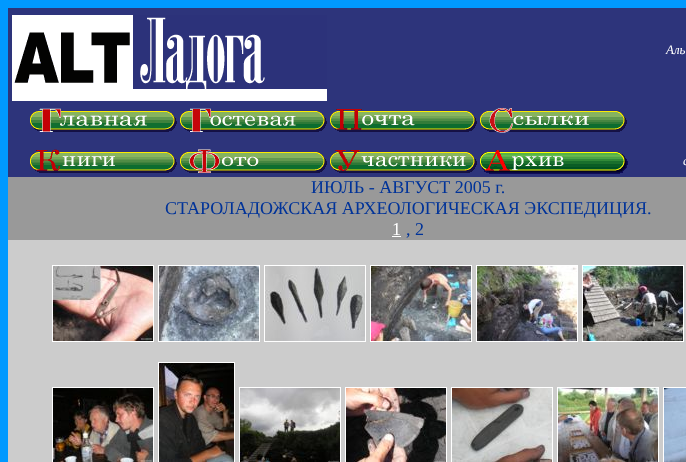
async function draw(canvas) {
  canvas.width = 686;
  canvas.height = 462;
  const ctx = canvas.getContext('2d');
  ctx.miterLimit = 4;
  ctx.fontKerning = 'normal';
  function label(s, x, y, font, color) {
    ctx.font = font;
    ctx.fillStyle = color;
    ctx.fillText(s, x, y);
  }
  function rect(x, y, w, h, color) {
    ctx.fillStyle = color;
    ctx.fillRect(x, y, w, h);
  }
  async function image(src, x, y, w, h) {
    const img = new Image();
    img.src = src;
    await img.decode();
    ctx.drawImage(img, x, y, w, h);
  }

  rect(0, 0, 686, 462, '#09f');
  rect(8, 8, 678, 169, '#2d347b');
  await image('assets/img1.png', 30, 108, 147, 24);
  await image('assets/img2.png', 180, 108, 147, 24);
  await image('assets/img3.png', 330, 109, 147, 23);
  await image('assets/img4.png', 480, 108, 147, 25);
  await image('assets/img5.png', 30, 149, 147, 24);
  await image('assets/img6.png', 180, 149, 147, 24);
  await image('assets/img7.png', 330, 150, 147, 23);
  await image('assets/img8.png', 480, 150, 148, 24);
  await image('assets/img9.png', 12, 15, 315, 86);
  label('Аль', 666, 54, 'italic 13px Liberation Serif', '#fff');
  label('с', 683, 165, 'italic 13px Liberation Serif', '#fff');
  rect(8, 177, 678, 63, '#999');
  label('ИЮЛЬ - АВГУСТ 2005 г.', 311, 193, '18px Liberation Serif', '#039');
  label('СТАРОЛАДОЖСКАЯ АРХЕОЛОГИЧЕСКАЯ ЭКСПЕДИЦИЯ.', 165, 214, '18px Liberation Serif', '#039');
  label('1', 392, 235, '18px Liberation Serif', '#fff');
  rect(392, 236, 9, 1, '#fff');
  label(', 2', 406, 235, '18px Liberation Serif', '#039');
  rect(8, 240, 678, 222, '#ccc');
  ctx.strokeStyle = '#fff';
  ctx.strokeRect(52.5, 265.5, 101, 76);
  ctx.strokeRect(158.5, 265.5, 101, 76);
  ctx.strokeRect(264.5, 265.5, 101, 76);
  ctx.strokeRect(370.5, 265.5, 101, 76);
  ctx.strokeRect(476.5, 265.5, 101, 76);
  ctx.strokeRect(582.5, 265.5, 101, 76);
  await image('assets/img10.png', 53, 266, 100, 75);
  await image('assets/img11.png', 159, 266, 100, 75);
  await image('assets/img12.png', 265, 266, 100, 75);
  await image('assets/img13.png', 371, 266, 100, 75);
  await image('assets/img14.png', 477, 266, 100, 75);
  await image('assets/img15.png', 583, 266, 100, 75);
  ctx.strokeRect(158.5, 362.5, 76, 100);
  ctx.strokeRect(52.5, 387.5, 101, 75);
  await image('assets/img16.png', 159, 363, 75, 99);
  ctx.strokeRect(239.5, 387.5, 101, 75);
  ctx.strokeRect(345.5, 387.5, 101, 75);
  ctx.strokeRect(451.5, 387.5, 101, 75);
  ctx.strokeRect(557.5, 387.5, 101, 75);
  ctx.strokeRect(663.5, 387.5, 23, 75);
  await image('assets/img17.png', 53, 388, 100, 74);
  await image('assets/img18.png', 240, 388, 100, 74);
  await image('assets/img19.png', 346, 388, 100, 74);
  await image('assets/img20.png', 452, 388, 100, 74);
  await image('assets/img21.png', 558, 388, 100, 74);
  await image('assets/img22.png', 664, 388, 22, 74);
}

draw(document.querySelector('canvas'));
